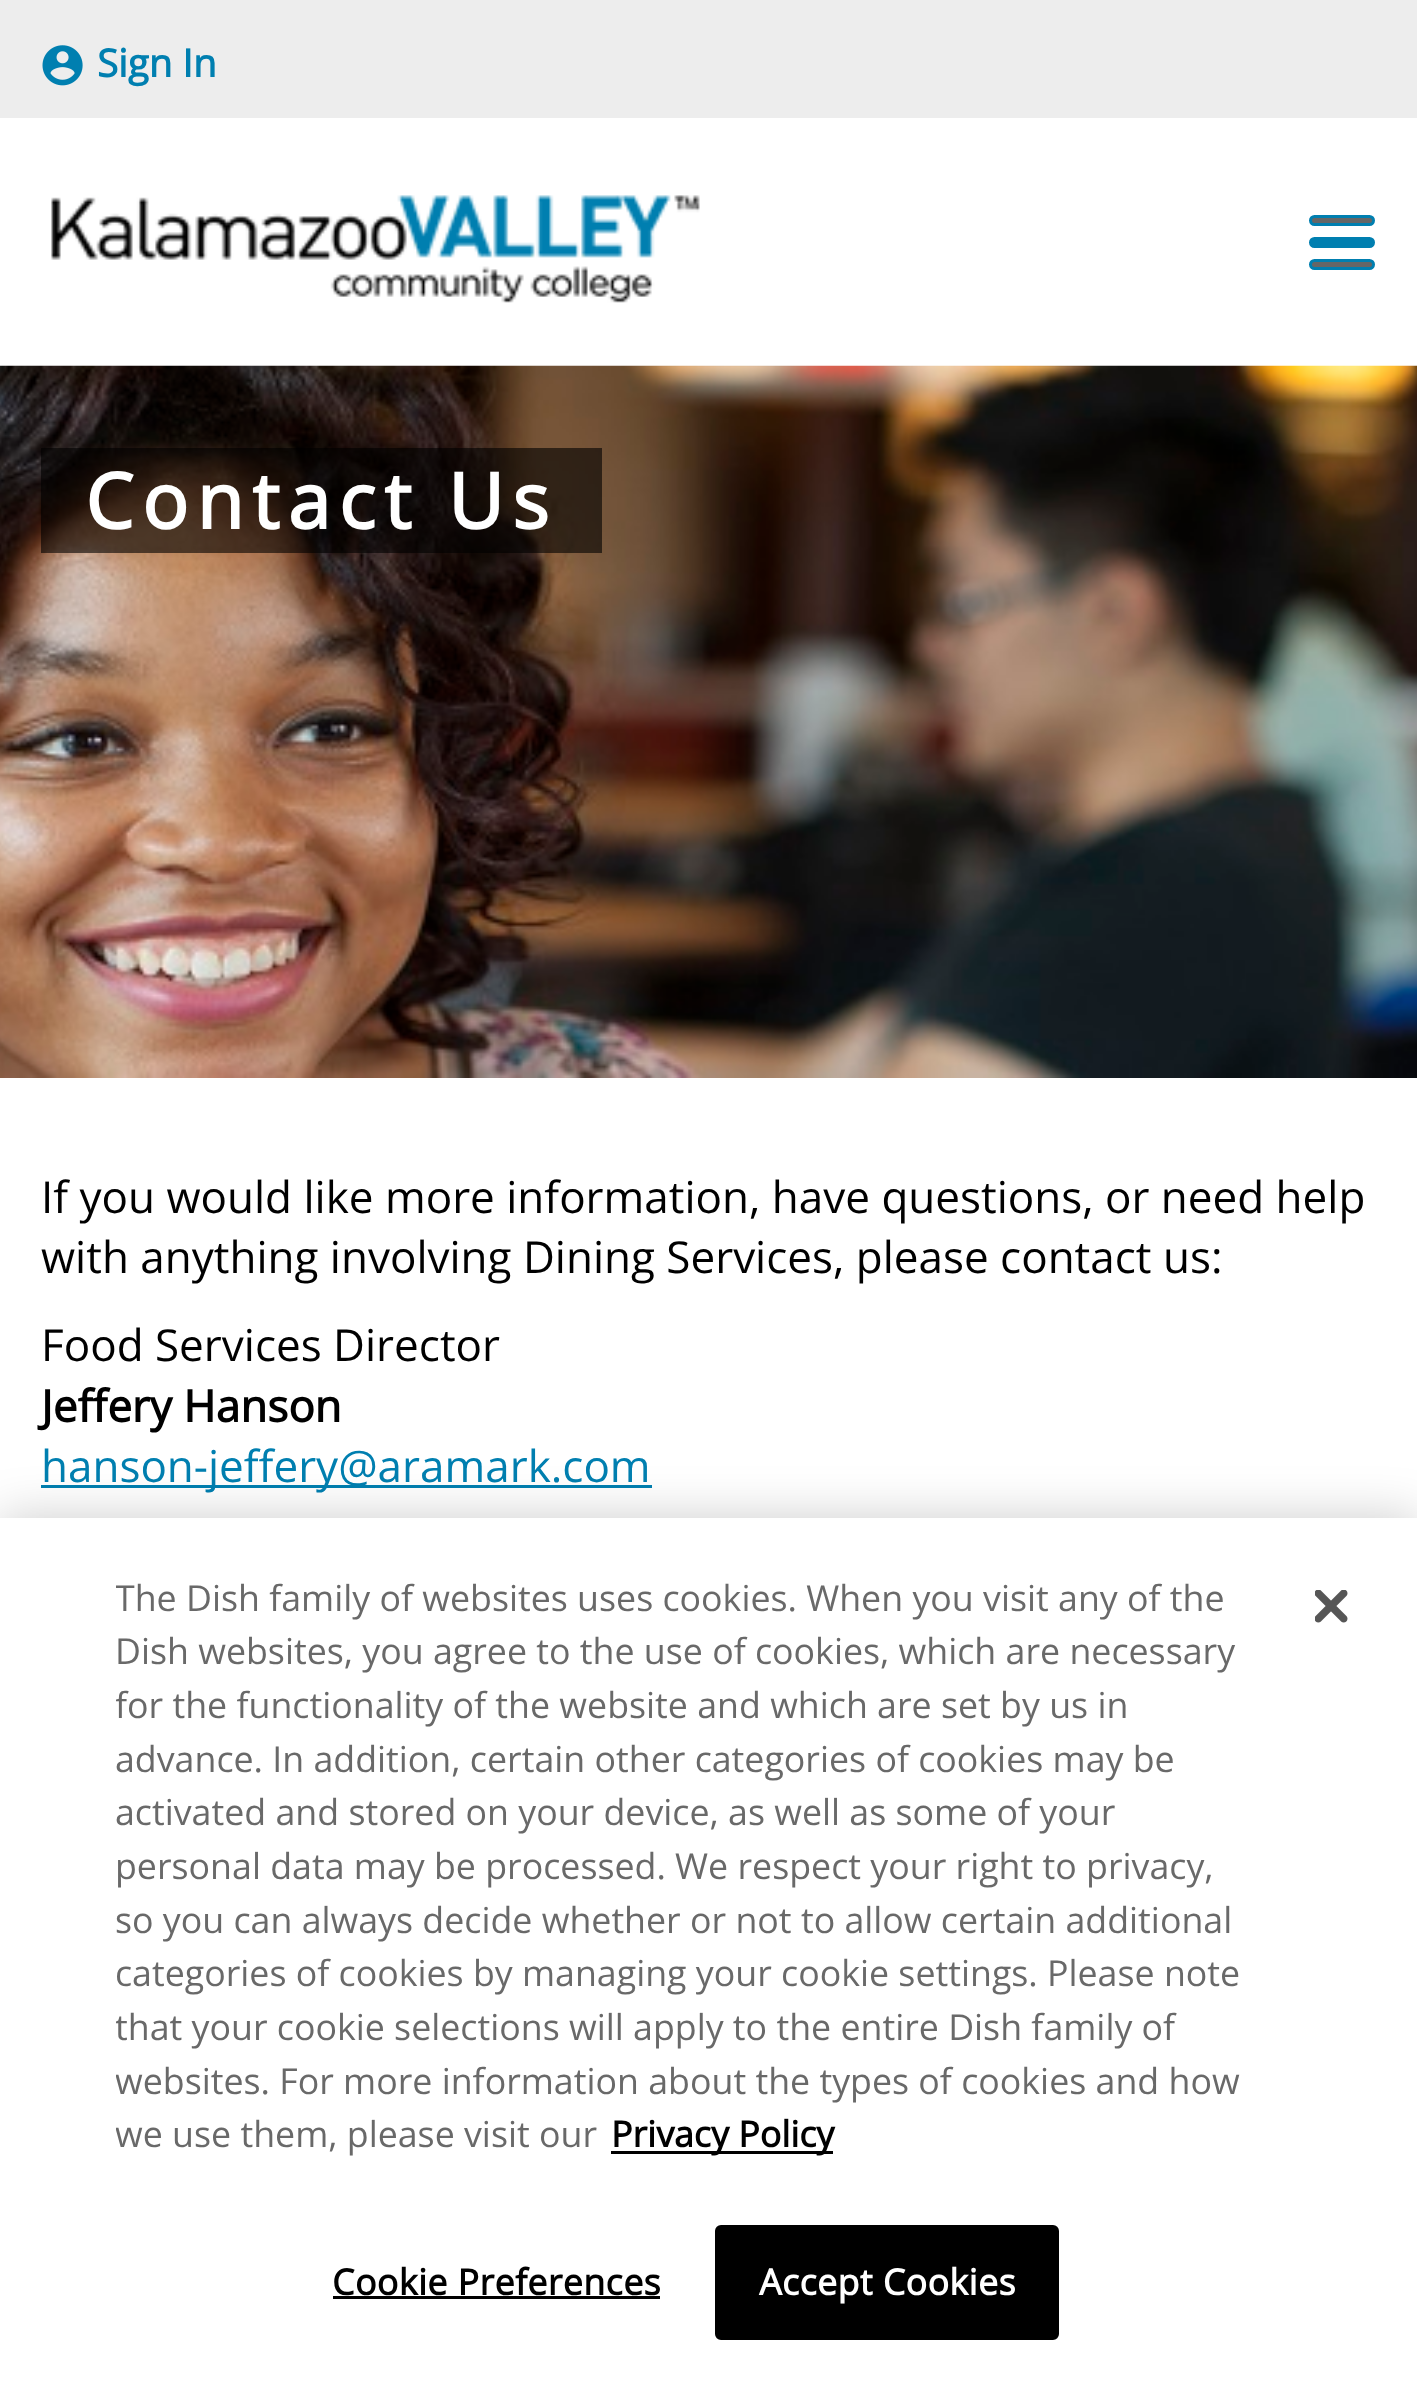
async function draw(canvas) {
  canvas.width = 1417;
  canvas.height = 2382;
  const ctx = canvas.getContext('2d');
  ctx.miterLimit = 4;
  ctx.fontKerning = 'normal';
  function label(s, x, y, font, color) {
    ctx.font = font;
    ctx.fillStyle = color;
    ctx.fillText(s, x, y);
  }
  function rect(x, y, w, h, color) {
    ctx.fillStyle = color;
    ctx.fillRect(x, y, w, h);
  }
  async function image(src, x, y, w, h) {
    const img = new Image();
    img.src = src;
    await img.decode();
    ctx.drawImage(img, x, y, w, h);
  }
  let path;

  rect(0, 0, 1417, 2382, '#fff');
  ctx.save();
  path = new Path2D('M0 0H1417V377H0ZM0 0H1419V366H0Z');
  ctx.clip(path, 'evenodd');
  ctx.fillStyle = '#00000021';
  ctx.filter = 'blur(1.5px)';
  ctx.beginPath();
  ctx.rect(0, 6, 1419, 365);
  ctx.fill();
  ctx.filter = 'none';
  ctx.restore();
  rect(0, 0, 1417, 118, '#ededed');
  await image('assets/img1.png', 42, 45, 41, 41);
  label('Sign In', 97, 77, 'bold 38.5px Open Sans', '#007fb0');
  await image('assets/img2.png', 51, 195, 649, 108);
  ctx.fillStyle = '#666';
  ctx.beginPath();
  ctx.roundRect(1310.5, 216.5, 63, 8, 4);
  ctx.fill();
  ctx.strokeStyle = '#007fb0';
  ctx.lineWidth = 3;
  ctx.stroke();
  ctx.fillStyle = '#007fb0';
  ctx.beginPath();
  ctx.roundRect(1310.5, 238.5, 63, 8, 4);
  ctx.fill();
  ctx.stroke();
  ctx.fillStyle = '#666';
  ctx.beginPath();
  ctx.roundRect(1310.5, 260.5, 63, 8, 4);
  ctx.fill();
  ctx.stroke();
  await image('assets/img3.png', 0, 365, 1417, 713);
  rect(41, 448, 561, 105, '#00000099');
  ctx.letterSpacing = '8.25px';
  label('Contact Us', 85, 529, 'bold 77px Open Sans', '#fff');
  ctx.letterSpacing = '0px';
  label('If you would like more information, have questions, or need help', 41, 1213, '44px Open Sans', '#000');
  label('with anything involving Dining Services, please contact us:', 41, 1273, '44px Open Sans', '#000');
  label('Food Services Director', 41, 1361, '44px Open Sans', '#000');
  label('Jeffery Hanson', 41, 1422, 'bold 44px Open Sans', '#000');
  rect(41, 1485, 611, 3, '#007fb0');
  label('hanson-jeffery@aramark.com', 41, 1482, '44px Open Sans', '#007fb0');
  ctx.fillStyle = '#00000033';
  ctx.filter = 'blur(25px)';
  ctx.beginPath();
  ctx.rect(0, 1518, 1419, 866);
  ctx.fill();
  ctx.filter = 'none';
  rect(0, 1518, 1417, 864, '#fff');
  ctx.save();
  ctx.beginPath();
  ctx.rect(116, 1573, 1124, 624);
  ctx.clip();
  label('The Dish family of websites uses cookies. When you visit any of the', 115, 1611, '35.75px Open Sans', '#696969');
  ctx.restore();
  label('Dish websites, you agree to the use of cookies, which are necessary', 115, 1664, '35.75px Open Sans', '#696969');
  ctx.save();
  ctx.beginPath();
  ctx.rect(116, 1573, 1124, 624);
  ctx.clip();
  label('for the functionality of the website and which are set by us in', 115, 1718, '35.75px Open Sans', '#696969');
  ctx.restore();
  label('advance. In addition, certain other categories of cookies may be', 115, 1772, '35.75px Open Sans', '#696969');
  label('activated and stored on your device, as well as some of your', 115, 1825, '35.75px Open Sans', '#696969');
  label('personal data may be processed. We respect your right to privacy,', 115, 1879, '35.75px Open Sans', '#696969');
  label('so you can always decide whether or not to allow certain additional', 115, 1933, '35.75px Open Sans', '#696969');
  label('categories of cookies by managing your cookie settings. Please note', 115, 1986, '35.75px Open Sans', '#696969');
  ctx.save();
  ctx.beginPath();
  ctx.rect(116, 1573, 1124, 624);
  ctx.clip();
  label('that your cookie selections will apply to the entire Dish family of', 115, 2040, '35.75px Open Sans', '#696969');
  label('websites. For more information about the types of cookies and how', 115, 2094, '35.75px Open Sans', '#696969');
  label('we use them, please visit our', 115, 2147, '35.75px Open Sans', '#696969');
  ctx.restore();
  rect(611, 2151, 222, 3, '#000');
  label('Privacy Policy', 611, 2147, 'bold 35.75px Open Sans', '#000');
  ctx.letterSpacing = '0.4px';
  label('Cookie Preferences', 332, 2295, 'bold 35.75px Open Sans', '#000');
  rect(333, 2296, 327, 3, '#000');
  ctx.beginPath();
  ctx.roundRect(716.5, 2226.5, 341, 112, 4.5);
  ctx.fill();
  ctx.strokeStyle = '#000';
  ctx.stroke();
  label('Accept Cookies', 759, 2295, 'bold 35.75px Open Sans', '#fff');
  await image('assets/img4.png', 1315, 1590, 33, 33);
}

draw(document.querySelector('canvas'));
